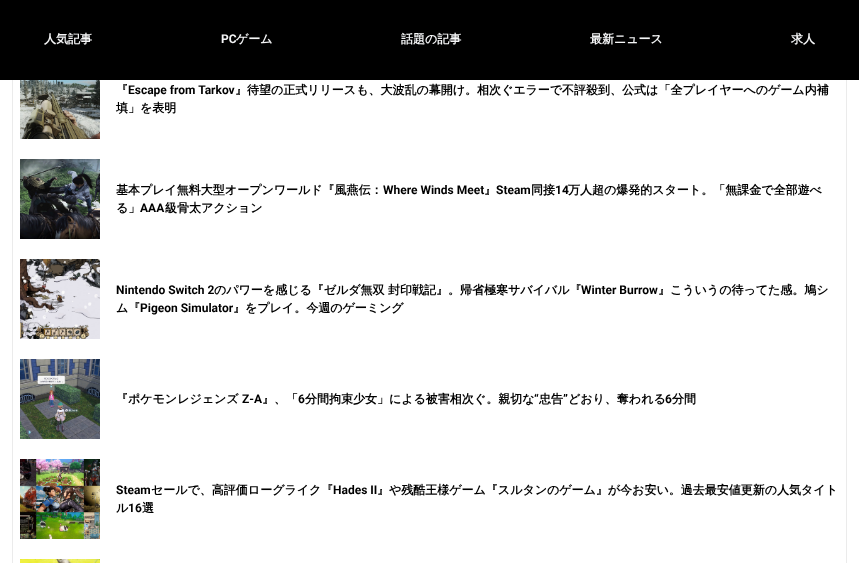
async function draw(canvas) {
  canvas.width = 859;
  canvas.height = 563;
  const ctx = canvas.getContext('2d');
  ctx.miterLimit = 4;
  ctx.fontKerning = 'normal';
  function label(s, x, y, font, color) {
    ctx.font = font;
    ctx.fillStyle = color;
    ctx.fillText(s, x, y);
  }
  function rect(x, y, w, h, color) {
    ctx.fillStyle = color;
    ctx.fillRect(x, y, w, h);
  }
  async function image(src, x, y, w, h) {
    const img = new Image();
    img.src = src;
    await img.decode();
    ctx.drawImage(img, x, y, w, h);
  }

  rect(0, 0, 859, 563, '#fff');
  ctx.strokeStyle = '#ebebeb';
  ctx.strokeRect(12.5, 41.5, 834, 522);
  rect(0, 0, 859, 80, '#000');
  label('人気記事', 44, 43, 'bold 12px WenQuanYi Zen Hei', '#f4f5f6');
  label('PC', 221, 43, 'bold 12px Roboto', '#f4f5f6');
  label('ゲーム', 236, 43, 'bold 12px WenQuanYi Zen Hei', '#f4f5f6');
  label('話題の記事', 401, 43, 'bold 12px WenQuanYi Zen Hei', '#f4f5f6');
  label('最新ニュース', 590, 43, 'bold 12px WenQuanYi Zen Hei', '#f4f5f6');
  label('求人', 791, 43, 'bold 12px WenQuanYi Zen Hei', '#f4f5f6');
  await image('assets/img1.png', 20, 80, 80, 59);
  label('『', 116, 94, 'bold 12px WenQuanYi Zen Hei', '#000');
  label('Escape from Tarkov', 128, 94, 'bold 12px Roboto', '#000');
  label('』待望の正式リリースも、大波乱の幕開け。相次ぐエラーで不評殺到、公式は「全プレイヤーへのゲーム内補', 235, 94, 'bold 12px WenQuanYi Zen Hei', '#000');
  label('填」を表明', 116, 112, 'bold 12px WenQuanYi Zen Hei', '#000');
  await image('assets/img2.png', 20, 159, 80, 80);
  label('基本プレイ無料大型オープンワールド『風燕伝：', 116, 194, 'bold 12px WenQuanYi Zen Hei', '#000');
  label('Where Winds Meet', 383, 194, 'bold 12px Roboto', '#000');
  label('』', 484, 194, 'bold 12px WenQuanYi Zen Hei', '#000');
  label('Steam', 496, 194, 'bold 12px Roboto', '#000');
  label('同接', 531, 194, 'bold 12px WenQuanYi Zen Hei', '#000');
  label('14', 555, 194, 'bold 12px Roboto', '#000');
  label('万人超の爆発的スタート。「無課金で全部遊べ', 568, 194, 'bold 12px WenQuanYi Zen Hei', '#000');
  label('る」', 116, 212, 'bold 12px WenQuanYi Zen Hei', '#000');
  label('AAA', 140, 212, 'bold 12px Roboto', '#000');
  label('級骨太アクション', 165, 212, 'bold 12px WenQuanYi Zen Hei', '#000');
  await image('assets/img3.png', 20, 259, 80, 80);
  label('Nintendo Switch 2', 116, 294, 'bold 12px Roboto', '#000');
  label('のパワーを感じる『ゼルダ無双', 214, 294, 'bold 12px WenQuanYi Zen Hei', '#000');
  label('封印戦記』。帰省極寒サバイバル『', 388, 294, 'bold 12px WenQuanYi Zen Hei', '#000');
  label('Winter Burrow', 581, 294, 'bold 12px Roboto', '#000');
  label('』こういうの待ってた感。鳩シ', 658, 294, 'bold 12px WenQuanYi Zen Hei', '#000');
  label('ム『', 116, 312, 'bold 12px WenQuanYi Zen Hei', '#000');
  label('Pigeon Simulator', 140, 312, 'bold 12px Roboto', '#000');
  label('』をプレイ。今週のゲーミング', 233, 312, 'bold 12px WenQuanYi Zen Hei', '#000');
  await image('assets/img4.png', 20, 359, 80, 80);
  label('『ポケモンレジェンズ', 116, 403, 'bold 12px WenQuanYi Zen Hei', '#000');
  label('Z-A', 242, 403, 'bold 12px Roboto', '#000');
  label('』、「', 262, 403, 'bold 12px WenQuanYi Zen Hei', '#000');
  label('6', 298, 403, 'bold 12px Roboto', '#000');
  label('分間拘束少女」による被害相次ぐ。親切な', 305, 403, 'bold 12px WenQuanYi Zen Hei', '#000');
  label('“', 534, 403, 'bold 12px Roboto', '#000');
  label('忠告', 539, 403, 'bold 12px WenQuanYi Zen Hei', '#000');
  label('”', 563, 403, 'bold 12px Roboto', '#000');
  label('どおり、奪われる', 568, 403, 'bold 12px WenQuanYi Zen Hei', '#000');
  label('6', 665, 403, 'bold 12px Roboto', '#000');
  label('分間', 672, 403, 'bold 12px WenQuanYi Zen Hei', '#000');
  await image('assets/img5.png', 20, 459, 80, 80);
  label('Steam', 116, 494, 'bold 12px Roboto', '#000');
  label('セールで、高評価ローグライク『', 151, 494, 'bold 12px WenQuanYi Zen Hei', '#000');
  label('Hades II', 333, 494, 'bold 12px Roboto', '#000');
  label('』や残酷王様ゲーム『スルタンのゲーム』が今お安い。過去最安値更新の人気タイト', 377, 494, 'bold 12px WenQuanYi Zen Hei', '#000');
  label('ル', 116, 512, 'bold 12px WenQuanYi Zen Hei', '#000');
  label('16', 128, 512, 'bold 12px Roboto', '#000');
  label('選', 142, 512, 'bold 12px WenQuanYi Zen Hei', '#000');
  await image('assets/img6.png', 20, 559, 80, 4);
}

draw(document.querySelector('canvas'));
